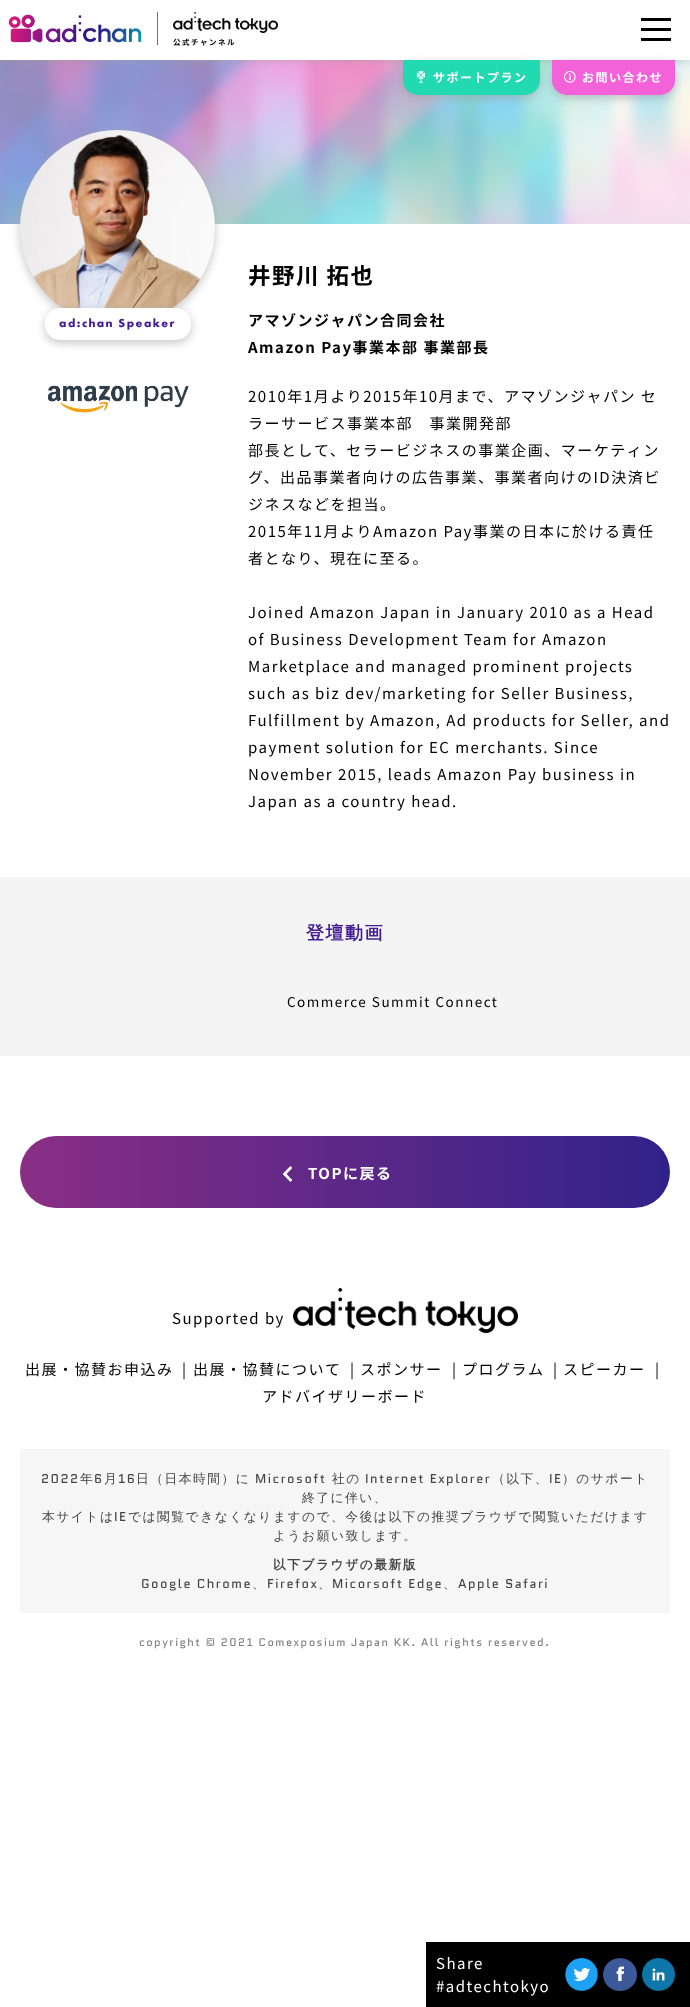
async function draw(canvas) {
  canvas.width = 690;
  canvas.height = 2007;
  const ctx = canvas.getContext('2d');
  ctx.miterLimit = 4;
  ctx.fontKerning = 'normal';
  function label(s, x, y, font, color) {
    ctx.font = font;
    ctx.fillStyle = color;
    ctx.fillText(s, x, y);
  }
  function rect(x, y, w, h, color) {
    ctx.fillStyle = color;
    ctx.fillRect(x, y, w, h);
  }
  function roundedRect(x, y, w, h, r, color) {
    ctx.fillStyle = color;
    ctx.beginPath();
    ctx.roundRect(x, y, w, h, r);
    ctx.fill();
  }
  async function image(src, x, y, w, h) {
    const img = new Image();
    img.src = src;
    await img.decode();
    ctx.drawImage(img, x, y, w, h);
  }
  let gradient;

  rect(0, 0, 690, 2007, '#fff');
  await image('assets/img5.png', 0, 60, 690, 164);
  ctx.fillStyle = '#9e9e9e99';
  ctx.filter = 'blur(5px)';
  ctx.beginPath();
  ctx.rect(0, 0, 690, 60);
  ctx.fill();
  ctx.filter = 'none';
  rect(0, 0, 690, 60, '#fff');
  rect(641, 18, 30, 3, '#000');
  rect(641, 28, 30, 3, '#000');
  rect(641, 38, 30, 3, '#000');
  rect(157, 12, 1, 33, '#717171');
  await image('assets/img1.png', 8, 14, 134, 29);
  await image('assets/img2.png', 173, 12, 105, 21);
  ctx.letterSpacing = '1.5px';
  label('公式チャンネル', 173, 45, 'bold 7.5px Noto Sans JP', '#000');
  ctx.fillStyle = '#9e9e9e99';
  ctx.filter = 'blur(5px)';
  ctx.beginPath();
  ctx.roundRect(403, 63, 137, 35, 15);
  ctx.fill();
  ctx.filter = 'none';
  ctx.fillStyle = '#22dab2';
  ctx.beginPath();
  ctx.roundRect(403, 60, 137, 35, [0, 0, 15, 15]);
  ctx.fill();
  await image('assets/img3.png', 416, 71, 10, 12);
  label('サポートプラン', 433, 82, 'bold 12px Noto Sans JP', '#fff');
  ctx.fillStyle = '#9e9e9e99';
  ctx.filter = 'blur(5px)';
  ctx.beginPath();
  ctx.roundRect(552, 63, 123, 35, 15);
  ctx.fill();
  ctx.filter = 'none';
  ctx.fillStyle = '#f362d9';
  ctx.beginPath();
  ctx.roundRect(552, 60, 123, 35, [0, 0, 15, 15]);
  ctx.fill();
  await image('assets/img4.png', 564, 71, 12, 12);
  label('お問い合わせ', 582, 82, 'bold 12px Noto Sans JP', '#fff');
  ctx.fillStyle = '#9e9e9e99';
  ctx.filter = 'blur(5px)';
  ctx.beginPath();
  ctx.roundRect(20, 133, 195, 195, 97.5);
  ctx.fill();
  ctx.filter = 'none';
  await image('assets/img6.png', 20, 130, 195, 178);
  ctx.filter = 'blur(5px)';
  ctx.beginPath();
  ctx.roundRect(45, 311, 146, 32, 15);
  ctx.fill();
  ctx.filter = 'none';
  roundedRect(45, 308, 146, 32, 15, '#fff');
  label('ad:chan Speaker', 59, 327, 'bold 12px Futura PT', '#431c95');
  await image('assets/img7.png', 46, 384, 143, 29);
  label('井野川 拓也', 248, 284, 'bold 22.5px Noto Sans JP', '#000');
  label('アマゾンジャパン合同会社', 248, 326, 'bold 15px Noto Sans JP', '#000');
  label('Amazon Pay事業本部 事業部長', 248, 353, 'bold 15px Noto Sans JP', '#000');
  label('2010年1月より2015年10月まで、アマゾンジャパン セ', 248, 402, '15px Noto Sans JP', '#000');
  label('ラーサービス事業本部　事業開発部', 248, 429, '15px Noto Sans JP', '#000');
  label('部長として、セラービジネスの事業企画、マーケティン', 248, 456, '15px Noto Sans JP', '#000');
  label('グ、出品事業者向けの広告事業、事業者向けのID決済ビ', 248, 483, '15px Noto Sans JP', '#000');
  label('ジネスなどを担当。', 248, 510, '15px Noto Sans JP', '#000');
  label('2015年11月よりAmazon Pay事業の日本に於ける責任', 248, 537, '15px Noto Sans JP', '#000');
  label('者となり、現在に至る。', 248, 564, '15px Noto Sans JP', '#000');
  label('Joined Amazon Japan in January 2010 as a Head', 248, 618, '15px Noto Sans JP', '#000');
  label('of Business Development Team for Amazon', 248, 645, '15px Noto Sans JP', '#000');
  label('Marketplace and managed prominent projects', 248, 672, '15px Noto Sans JP', '#000');
  label('such as biz dev/marketing for Seller Business,', 248, 699, '15px Noto Sans JP', '#000');
  label('Fulfillment by Amazon, Ad products for Seller, and', 248, 726, '15px Noto Sans JP', '#000');
  label('payment solution for EC merchants. Since', 248, 753, '15px Noto Sans JP', '#000');
  label('November 2015, leads Amazon Pay business in', 248, 780, '15px Noto Sans JP', '#000');
  label('Japan as a country head.', 248, 807, '15px Noto Sans JP', '#000');
  rect(0, 877, 690, 179, '#f4f4f4');
  label('登壇動画', 306, 939, 'bold 18px WenQuanYi Zen Hei', '#431c95');
  label('Commerce Summit Connect', 287, 1007, '13.5px Noto Sans JP', '#000');
  gradient = ctx.createLinearGradient(20, 1172, 670, 1172);
  gradient.addColorStop(0, '#8a2e85');
  gradient.addColorStop(1, '#30228a');
  ctx.fillStyle = gradient;
  ctx.beginPath();
  ctx.roundRect(20, 1136, 650, 72, 36);
  ctx.fill();
  await image('assets/img8.png', 282, 1166, 11, 16);
  label('TOPに戻る', 308, 1179, 'bold 15px Noto Sans JP', '#fff');
  label('Supported by', 172, 1324, '15px Noto Sans JP', '#000');
  await image('assets/img9.png', 293, 1288, 225, 45);
  label('出展・協賛お申込み', 25, 1375, '15px Noto Sans JP', '#000');
  label('|', 182, 1375, '15px Noto Sans JP', '#000');
  label('出展・協賛について', 193, 1375, '15px Noto Sans JP', '#000');
  label('|', 350, 1375, '15px Noto Sans JP', '#000');
  label('スポンサー', 360, 1375, '15px Noto Sans JP', '#000');
  label('|', 452, 1375, '15px Noto Sans JP', '#000');
  label('プログラム', 462, 1375, '15px Noto Sans JP', '#000');
  label('|', 553, 1375, '15px Noto Sans JP', '#000');
  label('スピーカー', 563, 1375, '15px Noto Sans JP', '#000');
  label('|', 655, 1375, '15px Noto Sans JP', '#000');
  label('アドバイザリーボード', 262, 1402, '15px Noto Sans JP', '#000');
  rect(20, 1449, 650, 164, '#f6f6f6');
  label('2022', 41, 1483, '12.75px Quantico', '#444');
  label('年', 80, 1483, '500 12.75px WenQuanYi Zen Hei', '#444');
  label('6', 94, 1483, '12.75px Quantico', '#444');
  label('月', 104, 1483, '500 12.75px WenQuanYi Zen Hei', '#444');
  label('16', 118, 1483, '12.75px Quantico', '#444');
  label('日（日本時間）に', 136, 1483, '500 12.75px WenQuanYi Zen Hei', '#444');
  label('Microsoft', 255, 1483, '12.75px Quantico', '#444');
  label('社の', 332, 1483, '500 12.75px WenQuanYi Zen Hei', '#444');
  label('Internet Explorer', 365, 1483, '12.75px Quantico', '#444');
  label('（以下、', 492, 1483, '500 12.75px WenQuanYi Zen Hei', '#444');
  label('IE', 549, 1483, '12.75px Quantico', '#444');
  label('）のサポート', 562, 1483, '500 12.75px WenQuanYi Zen Hei', '#444');
  label('終了に伴い、', 302, 1502, '500 12.75px WenQuanYi Zen Hei', '#444');
  label('本サイトは', 42, 1521, '500 12.75px WenQuanYi Zen Hei', '#444');
  label('IE', 114, 1521, '12.75px Quantico', '#444');
  label('では閲覧できなくなりますので、今後は以下の推奨ブラウザで閲覧いただけます', 128, 1521, '500 12.75px WenQuanYi Zen Hei', '#444');
  label('ようお願い致します。', 273, 1540, '500 12.75px WenQuanYi Zen Hei', '#444');
  label('以下ブラウザの最新版', 273, 1569, 'bold 12.75px WenQuanYi Zen Hei', '#444');
  label('Google Chrome', 141, 1588, '12.75px Quantico', '#444');
  label('、', 252, 1588, '500 12.75px WenQuanYi Zen Hei', '#444');
  label('Firefox', 267, 1588, '12.75px Quantico', '#444');
  label('、', 318, 1588, '500 12.75px WenQuanYi Zen Hei', '#444');
  label('Micorsoft Edge', 332, 1588, '12.75px Quantico', '#444');
  label('、', 443, 1588, '500 12.75px WenQuanYi Zen Hei', '#444');
  label('Apple Safari', 458, 1588, '12.75px Quantico', '#444');
  label('copyright © 2021 Comexposium Japan KK. All rights reserved.', 139, 1646, '11px Quantico', '#7e7e7e');
  rect(426, 1942, 264, 65, '#000');
  label('Share', 436, 1969, '15px Noto Sans JP', '#fff');
  label('#adtechtokyo', 436, 1992, '15px Noto Sans JP', '#fff');
  await image('assets/img10.png', 565, 1958, 33, 33);
  await image('assets/img11.png', 603, 1958, 34, 33);
  await image('assets/img12.png', 642, 1958, 33, 33);
}

draw(document.querySelector('canvas'));
